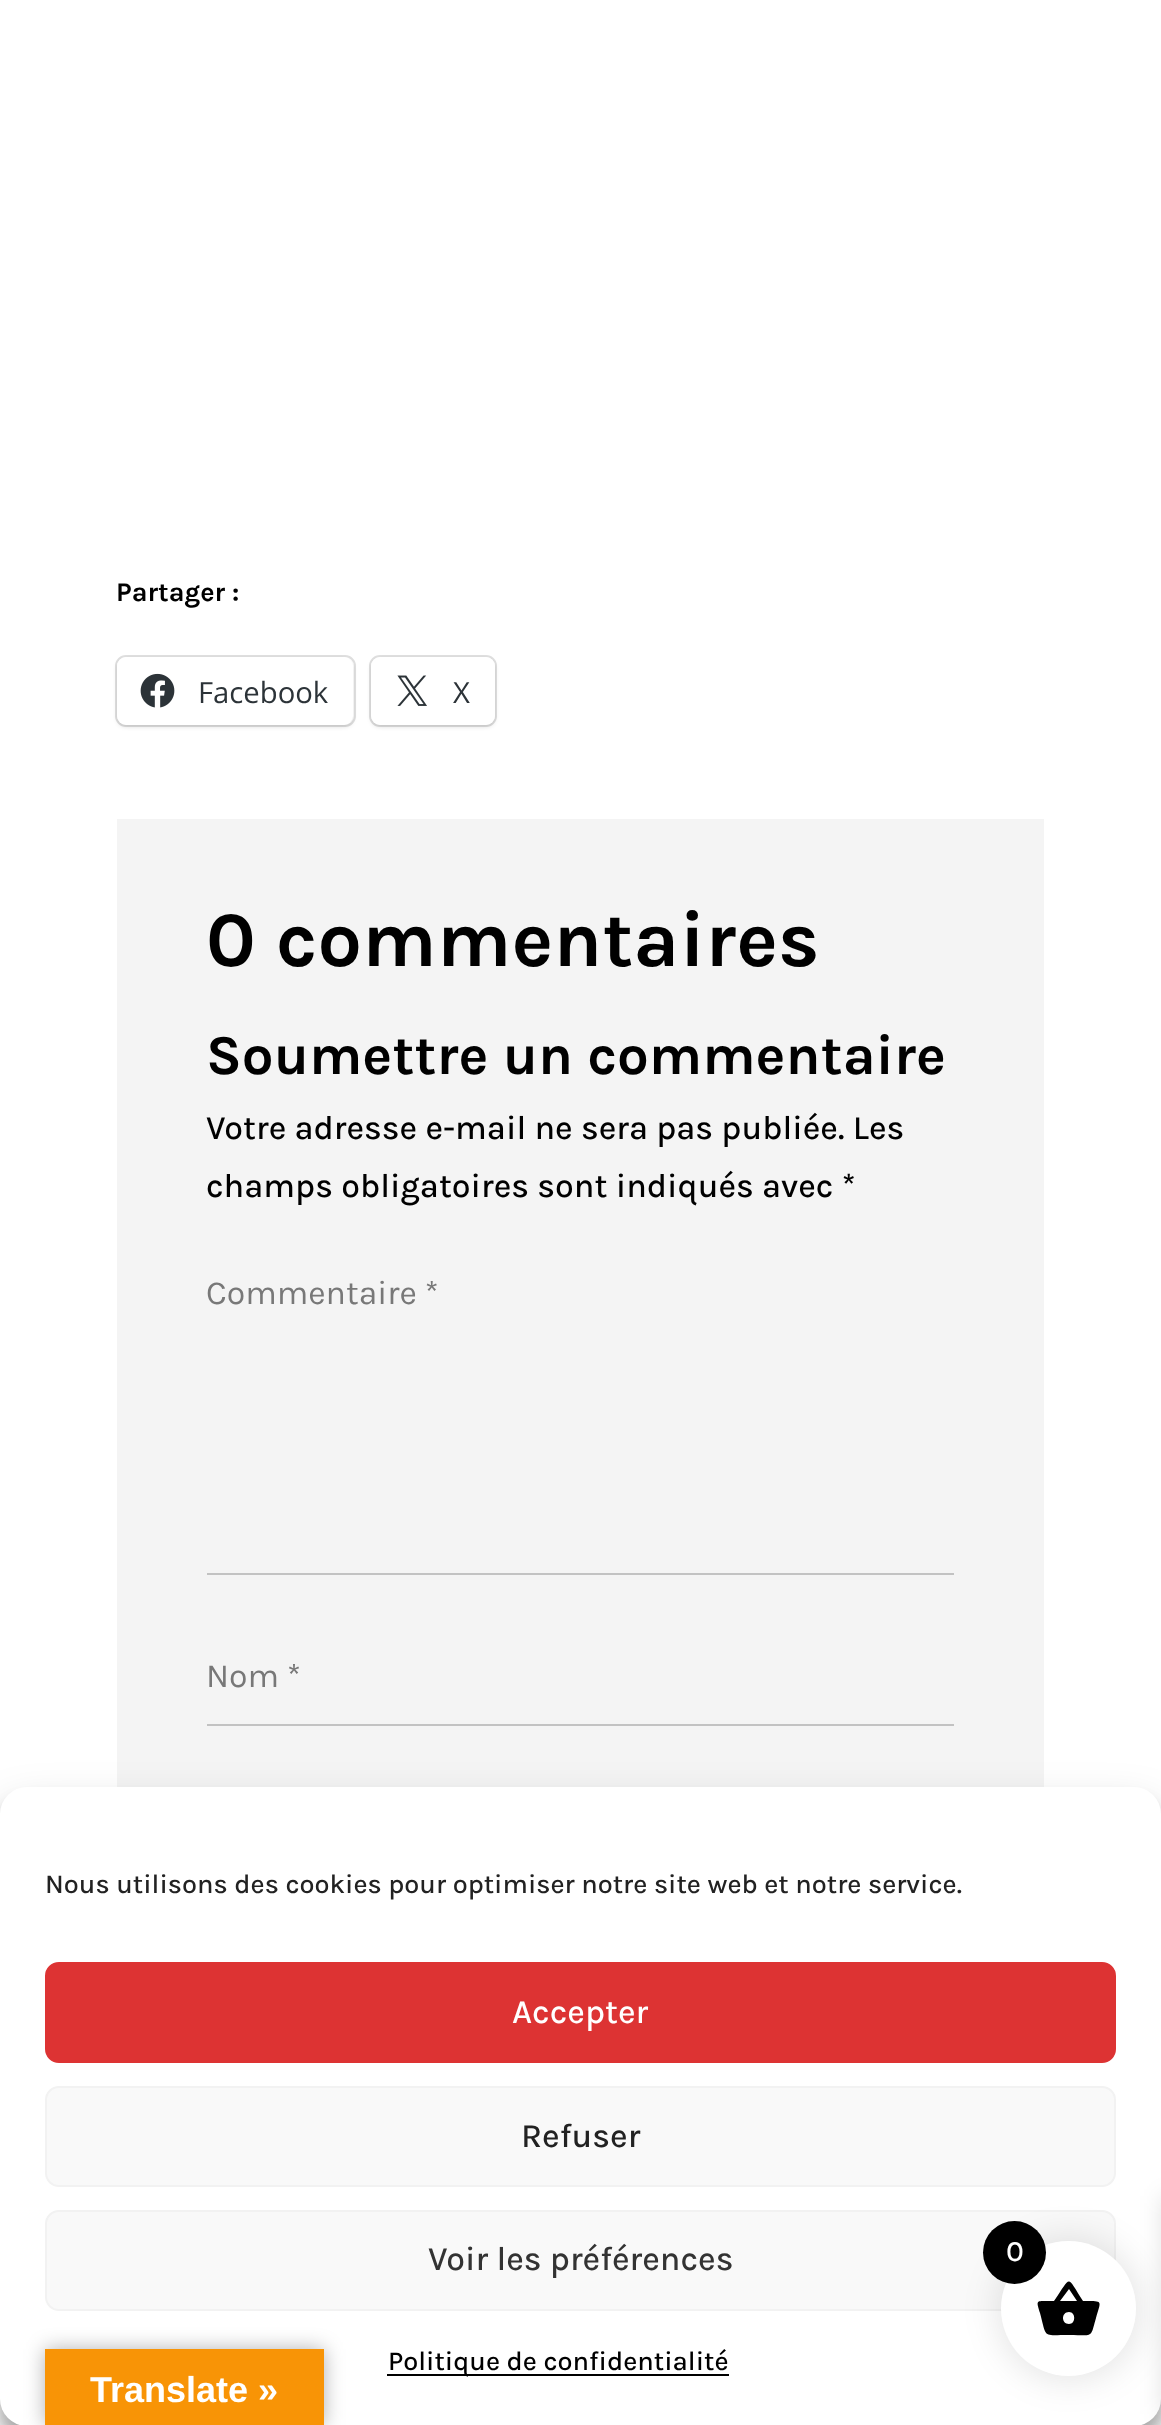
async function draw(canvas) {
  canvas.width = 1161;
  canvas.height = 2425;
  const ctx = canvas.getContext('2d');
  ctx.miterLimit = 4;
  ctx.fontKerning = 'normal';
  function label(s, x, y, font, color) {
    ctx.font = font;
    ctx.fillStyle = color;
    ctx.fillText(s, x, y);
  }
  function rect(x, y, w, h, color) {
    ctx.fillStyle = color;
    ctx.fillRect(x, y, w, h);
  }
  function roundedRect(x, y, w, h, r, color) {
    ctx.fillStyle = color;
    ctx.beginPath();
    ctx.roundRect(x, y, w, h, r);
    ctx.fill();
  }
  async function image(src, x, y, w, h) {
    const img = new Image();
    img.src = src;
    await img.decode();
    ctx.drawImage(img, x, y, w, h);
  }
  let path;

  rect(0, 0, 1161, 2425, '#fff');
  label('Partager :', 116, 601, 'bold 27px Karla', '#000');
  ctx.beginPath();
  ctx.roundRect(116, 656, 239, 70, 10);
  ctx.strokeStyle = '#e0e0e0';
  ctx.lineWidth = 2;
  ctx.stroke();
  ctx.fillStyle = '#0000001f';
  ctx.filter = 'blur(2px)';
  ctx.beginPath();
  ctx.roundRect(117, 659, 236, 68, 9);
  ctx.fill();
  ctx.filter = 'none';
  roundedRect(117, 657, 236, 68, 9, '#fff');
  await image('assets/img1.png', 140, 673, 35, 35);
  label('Facebook', 198, 703, '29.25px Open Sans', '#2c3338');
  ctx.beginPath();
  ctx.roundRect(370, 656, 126, 70, 10);
  ctx.stroke();
  ctx.fillStyle = '#0000001f';
  ctx.filter = 'blur(2px)';
  ctx.beginPath();
  ctx.roundRect(371, 659, 124, 68, 9);
  ctx.fill();
  ctx.filter = 'none';
  roundedRect(371, 657, 124, 68, 9, '#fff');
  await image('assets/img2.png', 397, 675, 30, 31);
  label('X', 453, 703, '29.25px Open Sans', '#2c3338');
  rect(117, 819, 927, 968, '#f4f4f4');
  label('0 commentaires', 206, 966, 'bold 78.75px Karla', '#000');
  label('Soumettre un commentaire', 206, 1074, 'bold 56.25px Karla', '#000');
  label('Votre adresse e-mail ne sera pas publiée. Les', 206, 1139, '500 33.75px Karla', '#000');
  label('champs obligatoires sont indiqués avec *', 206, 1197, '500 33.75px Karla', '#000');
  rect(207, 1573, 747, 2, '#c2c2c2');
  label('Commentaire *', 206, 1304, '33.75px Karla', '#787878');
  rect(207, 1724, 747, 2, '#c2c2c2');
  label('Nom *', 206, 1687, '33.75px Karla', '#787878');
  ctx.fillStyle = '#0000003b';
  ctx.filter = 'blur(7px)';
  ctx.beginPath();
  ctx.roundRect(0, 1800, 1161, 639, 27);
  ctx.fill();
  ctx.filter = 'none';
  ctx.fillStyle = '#00000030';
  ctx.filter = 'blur(22.5px)';
  ctx.beginPath();
  ctx.roundRect(0, 1809, 1161, 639, 27);
  ctx.fill();
  ctx.filter = 'none';
  roundedRect(0, 1787, 1161, 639, 27, '#fff');
  label('Nous utilisons des cookies pour optimiser notre site web et notre service.', 45, 1893, '500 27px Karla', '#222');
  ctx.fillStyle = '#d33';
  ctx.beginPath();
  ctx.roundRect(46, 1963, 1069, 99, 13);
  ctx.fill();
  ctx.strokeStyle = '#d33';
  ctx.stroke();
  label('Accepter', 512, 2023, '500 33.75px Karla', '#fff');
  ctx.fillStyle = '#f9f9f9';
  ctx.beginPath();
  ctx.roundRect(46, 2087, 1069, 99, 13);
  ctx.fill();
  ctx.strokeStyle = '#f2f2f2';
  ctx.stroke();
  label('Refuser', 521, 2147, '500 33.75px Karla', '#222');
  ctx.fillStyle = '#f9f9f9';
  ctx.beginPath();
  ctx.roundRect(46, 2211, 1069, 99, 13);
  ctx.fill();
  ctx.stroke();
  label('Voir les préférences', 428, 2270, '500 33.75px Karla', '#333');
  rect(387, 2374, 342, 2, '#000');
  label('Politique de confidentialité', 388, 2370, '500 27px Karla', '#000');
  ctx.fillStyle = '#0000001a';
  ctx.filter = 'blur(17px)';
  ctx.beginPath();
  ctx.roundRect(997, 2237, 144, 144, 72);
  ctx.fill();
  ctx.filter = 'none';
  ctx.filter = 'blur(11px)';
  ctx.beginPath();
  ctx.rect(1161, 2196, 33, 218);
  ctx.fill();
  ctx.filter = 'none';
  ctx.fillStyle = '#fff';
  ctx.beginPath();
  ctx.arc(1068.5, 2308.5, 67.5, 0, 2 * Math.PI);
  ctx.fill();
  ctx.fillStyle = '#000';
  path = new Path2D('M1069 2324C1076 2324 1076 2312 1069 2312C1061 2312 1061 2324 1069 2324ZM1060 2301H1077L1069 2289ZM1083 2301C1104 2301 1101 2300 1096 2318C1090 2339 1094 2335 1069 2335C1042 2335 1047 2339 1040 2313C1036 2299 1035 2301 1054 2301C1072 2275 1066 2275 1083 2301Z');
  ctx.fill(path);
  ctx.beginPath();
  ctx.arc(1014.5, 2252.5, 31.5, 0, 2 * Math.PI);
  ctx.fill();
  label('0', 1006, 2261, '500 29.25px Karla', '#fff');
  ctx.fillStyle = '#0000004d';
  ctx.filter = 'blur(10px)';
  ctx.beginPath();
  ctx.rect(45, 2349, 279, 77);
  ctx.fill();
  ctx.filter = 'none';
  rect(45, 2349, 279, 76, '#f89406');
  label('Translate »', 90, 2402, 'bold 36px Liberation Sans', '#fff');
}

draw(document.querySelector('canvas'));
